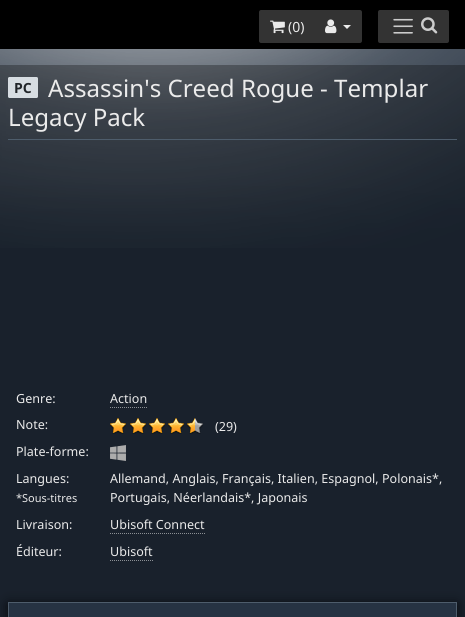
#include <cairo.h>
#include <math.h>
#include <stddef.h>

static cairo_t *ctx;

static void use_color(int r, int g, int b) {
    cairo_set_source_rgb(ctx, r / 255.0, g / 255.0, b / 255.0);
}

static void round_rect(double x, double y, double w, double h, double r) {
    cairo_new_sub_path(ctx);
    cairo_arc(ctx, x + w - r, y + h - r, r, 0, M_PI / 2);
    cairo_arc(ctx, x + r, y + h - r, r, M_PI / 2, M_PI);
    cairo_arc(ctx, x + r, y + r, r, M_PI, 1.5 * M_PI);
    cairo_arc(ctx, x + w - r, y + r, r, 1.5 * M_PI, 2 * M_PI);
    cairo_close_path(ctx);
}

static void shadow(double x, double y, double w, double h, double r, double blur, double alpha) {
    cairo_push_group_with_content(ctx, CAIRO_CONTENT_ALPHA);
    cairo_set_operator(ctx, CAIRO_OPERATOR_SOURCE);
    for (int i = 15; i >= -15 && fmin(w, h) + blur * i / 3 > 0; i -= 2) {
        double e = blur * i / 6;
        cairo_set_source_rgba(ctx, 0, 0, 0, alpha * erfc((i - 1) / 8.5) / 2);
        round_rect(x - e, y - e, w + 2 * e, h + 2 * e, fmax(0, fmin(r + e + blur * .6, fmin(w, h) / 2 + e)));
        cairo_fill(ctx);
    }
    cairo_pattern_t *soft = cairo_pop_group(ctx);
    cairo_mask(ctx, soft);
    cairo_pattern_destroy(soft);
}

static void picture(const char *path, double x, double y, double w, double h) {
    cairo_surface_t *image = cairo_image_surface_create_from_png(path);
    cairo_save(ctx);
    cairo_set_source_surface(ctx, image, x, y);
    cairo_rectangle(ctx, x, y, w, h);
    cairo_fill(ctx);
    cairo_restore(ctx);
    cairo_surface_destroy(image);
}

int main(void) {
    cairo_surface_t *surface = cairo_image_surface_create(CAIRO_FORMAT_RGB24, 465, 617);
    ctx = cairo_create(surface);
    cairo_font_options_t *options = cairo_font_options_create();
    cairo_font_options_set_hint_metrics(options, CAIRO_HINT_METRICS_OFF);
    cairo_font_options_set_hint_style(options, CAIRO_HINT_STYLE_NONE);
    cairo_set_font_options(ctx, options);
    cairo_set_miter_limit(ctx, 4);
    use_color(35, 47, 62);
    cairo_paint(ctx);
    picture("img1.png", 0, 49, 465, 199);
    use_color(0, 0, 0);
    cairo_rectangle(ctx, 0, 0, 465, 49);
    cairo_fill(ctx);
    use_color(51, 51, 51);
    cairo_new_path(ctx);
    cairo_move_to(ctx, 261, 10);
    cairo_line_to(ctx, 315, 10);
    cairo_line_to(ctx, 315, 43);
    cairo_line_to(ctx, 261, 43);
    cairo_curve_to(ctx, 260, 43, 259, 42, 259, 41);
    cairo_line_to(ctx, 259, 12);
    cairo_curve_to(ctx, 259, 11, 260, 10, 261, 10);
    cairo_close_path(ctx);
    cairo_fill(ctx);
    picture("img2.png", 270, 20, 15, 14);
    cairo_select_font_face(ctx, "Noto Sans", CAIRO_FONT_SLANT_NORMAL, CAIRO_FONT_WEIGHT_NORMAL);
    cairo_set_font_size(ctx, 14);
    use_color(235, 235, 235);
    cairo_move_to(ctx, 288, 32);
    cairo_show_text(ctx, "(0)");
    use_color(51, 51, 51);
    cairo_new_path(ctx);
    cairo_move_to(ctx, 314, 10);
    cairo_line_to(ctx, 360, 10);
    cairo_curve_to(ctx, 361, 10, 362, 11, 362, 12);
    cairo_line_to(ctx, 362, 41);
    cairo_curve_to(ctx, 362, 42, 361, 43, 360, 43);
    cairo_line_to(ctx, 314, 43);
    cairo_close_path(ctx);
    cairo_fill(ctx);
    picture("img3.png", 325, 19, 12, 15);
    use_color(235, 235, 235);
    cairo_new_path(ctx);
    cairo_move_to(ctx, 343, 25);
    cairo_line_to(ctx, 351, 25);
    cairo_line_to(ctx, 347, 29);
    cairo_close_path(ctx);
    cairo_fill(ctx);
    use_color(51, 51, 51);
    round_rect(378, 10, 71, 33, 2);
    cairo_fill(ctx);
    picture("img4.png", 393, 18, 20, 16);
    picture("img5.png", 421, 17, 17, 17);
    cairo_set_source_rgba(ctx, 0, 0, 0, 0.3);
    cairo_rectangle(ctx, 0, 65, 465, 552);
    cairo_fill(ctx);
    use_color(78, 93, 108);
    cairo_rectangle(ctx, 8, 139, 449, 1);
    cairo_fill(ctx);
    cairo_set_font_size(ctx, 24.1);
    use_color(235, 235, 235);
    cairo_move_to(ctx, 48, 97);
    cairo_show_text(ctx, "Assassin's Creed Rogue - Templar");
    cairo_move_to(ctx, 8, 126);
    cairo_show_text(ctx, "Legacy Pack");
    use_color(215, 221, 226);
    round_rect(8, 77, 30, 21, 1.5);
    cairo_fill(ctx);
    cairo_select_font_face(ctx, "Noto Sans", CAIRO_FONT_SLANT_NORMAL, CAIRO_FONT_WEIGHT_BOLD);
    cairo_set_font_size(ctx, 14);
    use_color(33, 37, 41);
    cairo_move_to(ctx, 14, 93);
    cairo_show_text(ctx, "PC");
    cairo_select_font_face(ctx, "Noto Sans", CAIRO_FONT_SLANT_NORMAL, CAIRO_FONT_WEIGHT_NORMAL);
    cairo_set_font_size(ctx, 12.55);
    use_color(235, 235, 235);
    cairo_move_to(ctx, 16, 403);
    cairo_show_text(ctx, "Genre:");
    cairo_move_to(ctx, 110, 403);
    cairo_show_text(ctx, "Action");
    cairo_new_path(ctx);
    cairo_move_to(ctx, 110, 407.5);
    cairo_line_to(ctx, 148, 407.5);
    use_color(140, 144, 149);
    cairo_set_line_width(ctx, 1);
    cairo_set_dash(ctx, (double[]){1, 1}, 2, 0);
    cairo_stroke(ctx);
    use_color(235, 235, 235);
    cairo_move_to(ctx, 16, 429);
    cairo_show_text(ctx, "Note:");
    picture("img6.png", 110, 418, 16, 16);
    picture("img6.png", 130, 418, 16, 16);
    picture("img6.png", 149, 418, 16, 16);
    picture("img6.png", 168, 418, 16, 16);
    picture("img7.png", 187, 418, 16, 16);
    cairo_move_to(ctx, 215, 431);
    cairo_show_text(ctx, "(29)");
    cairo_move_to(ctx, 16, 456);
    cairo_show_text(ctx, "Plate-forme:");
    picture("img8.png", 110, 445, 16, 16);
    cairo_move_to(ctx, 16, 483);
    cairo_show_text(ctx, "Langues:");
    cairo_set_font_size(ctx, 11);
    cairo_move_to(ctx, 16, 502);
    cairo_show_text(ctx, "*Sous-titres");
    cairo_set_font_size(ctx, 12.55);
    cairo_move_to(ctx, 110, 483);
    cairo_show_text(ctx, "Allemand, Anglais, Français, Italien, Espagnol, Polonais*,");
    cairo_move_to(ctx, 110, 502);
    cairo_show_text(ctx, "Portugais, Néerlandais*, Japonais");
    cairo_move_to(ctx, 16, 529);
    cairo_show_text(ctx, "Livraison:");
    cairo_move_to(ctx, 110, 529);
    cairo_show_text(ctx, "Ubisoft Connect");
    cairo_new_path(ctx);
    cairo_move_to(ctx, 110, 533.5);
    cairo_line_to(ctx, 205, 533.5);
    use_color(140, 144, 149);
    cairo_stroke(ctx);
    use_color(235, 235, 235);
    cairo_move_to(ctx, 16, 556);
    cairo_show_text(ctx, "Éditeur:");
    cairo_move_to(ctx, 110, 556);
    cairo_show_text(ctx, "Ubisoft");
    cairo_new_path(ctx);
    cairo_move_to(ctx, 110, 560.5);
    cairo_line_to(ctx, 153, 560.5);
    use_color(140, 144, 149);
    cairo_stroke(ctx);
    use_color(0, 0, 0);
    shadow(8, 604, 449, 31, 0, 6, 0.75);
    use_color(38, 51, 67);
    cairo_rectangle(ctx, 8.5, 602.5, 448, 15);
    cairo_fill_preserve(ctx);
    use_color(78, 93, 108);
    cairo_set_dash(ctx, NULL, 0, 0);
    cairo_stroke(ctx);
    cairo_surface_write_to_png(surface, "result.png");
    cairo_font_options_destroy(options);
    cairo_destroy(ctx);
    cairo_surface_destroy(surface);
    return 0;
}
